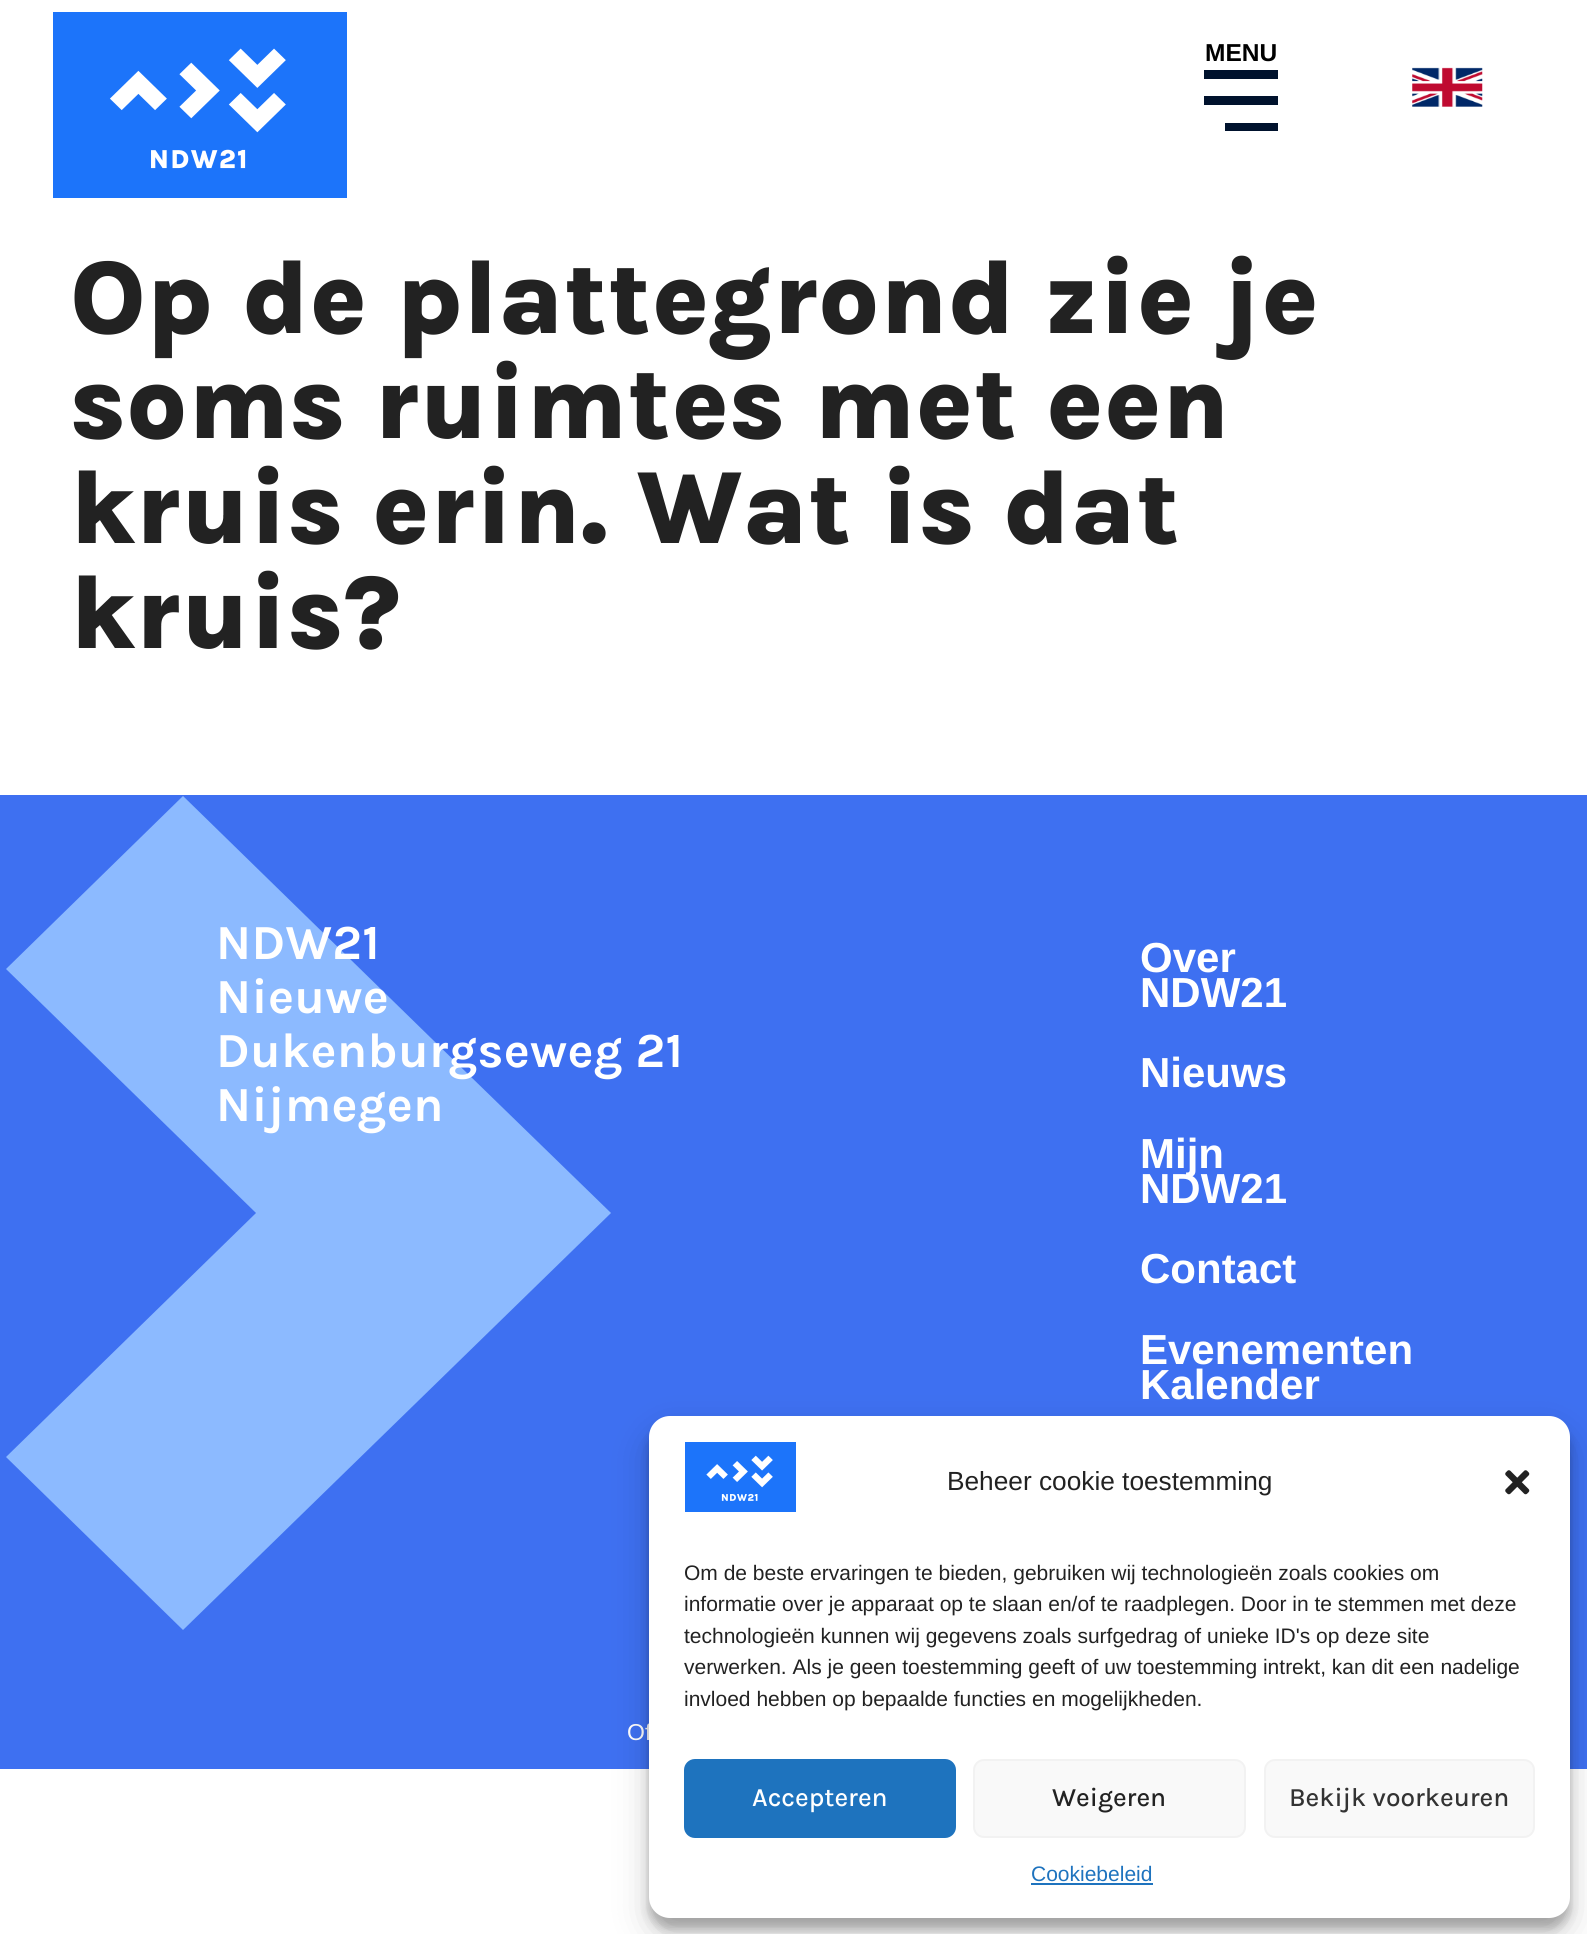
#include <cairo.h>
#include <math.h>
#include <stddef.h>

static cairo_t *ctx;

static void use_color(int r, int g, int b) {
    cairo_set_source_rgb(ctx, r / 255.0, g / 255.0, b / 255.0);
}

static void spaced_text(double x, double y, const char *s, double letter, double word) {
    cairo_move_to(ctx, x, y);
    while (*s) {
        char ch[5] = {0};
        int n = 0;
        do ch[n++] = *s++; while ((*s & 0xC0) == 0x80);
        cairo_show_text(ctx, ch);
        cairo_rel_move_to(ctx, letter + word * (*ch == ' '), 0);
    }
}

static void round_rect(double x, double y, double w, double h, double r) {
    cairo_new_sub_path(ctx);
    cairo_arc(ctx, x + w - r, y + h - r, r, 0, M_PI / 2);
    cairo_arc(ctx, x + r, y + h - r, r, M_PI / 2, M_PI);
    cairo_arc(ctx, x + r, y + r, r, M_PI, 1.5 * M_PI);
    cairo_arc(ctx, x + w - r, y + r, r, 1.5 * M_PI, 2 * M_PI);
    cairo_close_path(ctx);
}

static void shadow(double x, double y, double w, double h, double r, double blur, double alpha) {
    cairo_push_group_with_content(ctx, CAIRO_CONTENT_ALPHA);
    cairo_set_operator(ctx, CAIRO_OPERATOR_SOURCE);
    for (int i = 15; i >= -15 && fmin(w, h) + blur * i / 3 > 0; i -= 2) {
        double e = blur * i / 6;
        cairo_set_source_rgba(ctx, 0, 0, 0, alpha * erfc((i - 1) / 8.5) / 2);
        round_rect(x - e, y - e, w + 2 * e, h + 2 * e, fmax(0, fmin(r + e + blur * .6, fmin(w, h) / 2 + e)));
        cairo_fill(ctx);
    }
    cairo_pattern_t *soft = cairo_pop_group(ctx);
    cairo_mask(ctx, soft);
    cairo_pattern_destroy(soft);
}

static void picture(const char *path, double x, double y, double w, double h) {
    cairo_surface_t *image = cairo_image_surface_create_from_png(path);
    cairo_save(ctx);
    cairo_set_source_surface(ctx, image, x, y);
    cairo_rectangle(ctx, x, y, w, h);
    cairo_fill(ctx);
    cairo_restore(ctx);
    cairo_surface_destroy(image);
}

int main(void) {
    cairo_surface_t *surface = cairo_image_surface_create(CAIRO_FORMAT_RGB24, 1587, 1934);
    ctx = cairo_create(surface);
    cairo_font_options_t *options = cairo_font_options_create();
    cairo_font_options_set_hint_metrics(options, CAIRO_HINT_METRICS_OFF);
    cairo_font_options_set_hint_style(options, CAIRO_HINT_STYLE_NONE);
    cairo_set_font_options(ctx, options);
    cairo_set_miter_limit(ctx, 4);
    use_color(255, 255, 255);
    cairo_paint(ctx);
    picture("img1.png", 53, 12, 294, 186);
    cairo_select_font_face(ctx, "Liberation Sans", CAIRO_FONT_SLANT_NORMAL, CAIRO_FONT_WEIGHT_BOLD);
    cairo_set_font_size(ctx, 24.5);
    use_color(0, 0, 0);
    cairo_move_to(ctx, 1205, 61);
    cairo_show_text(ctx, "MENU");
    use_color(0, 18, 45);
    cairo_rectangle(ctx, 1204, 70, 74, 9);
    cairo_fill(ctx);
    cairo_rectangle(ctx, 1204, 96, 74, 9);
    cairo_fill(ctx);
    cairo_rectangle(ctx, 1225, 123, 53, 8);
    cairo_fill(ctx);
    picture("img2.png", 1412, 67, 71, 40);
    cairo_select_font_face(ctx, "Karla ExtraBold", CAIRO_FONT_SLANT_NORMAL, CAIRO_FONT_WEIGHT_NORMAL);
    cairo_set_font_size(ctx, 105.1);
    use_color(34, 34, 34);
    spaced_text(70, 333, "Op de plattegrond zie je", 0.35, 0);
    spaced_text(70, 438, "soms ruimtes met een", 0.35, 0);
    spaced_text(70, 543, "kruis erin. Wat is dat", 0.35, 0);
    spaced_text(70, 648, "kruis?", 0.35, 0);
    use_color(62, 112, 241);
    cairo_rectangle(ctx, 0, 795, 1587, 974);
    cairo_fill(ctx);
    use_color(140, 186, 255);
    cairo_new_path(ctx);
    cairo_move_to(ctx, 433, 1040);
    cairo_line_to(ctx, 183, 796);
    cairo_line_to(ctx, 6, 969);
    cairo_line_to(ctx, 256, 1213);
    cairo_line_to(ctx, 6, 1457);
    cairo_line_to(ctx, 183, 1630);
    cairo_line_to(ctx, 611, 1213);
    cairo_close_path(ctx);
    cairo_fill(ctx);
    cairo_select_font_face(ctx, "Karla", CAIRO_FONT_SLANT_NORMAL, CAIRO_FONT_WEIGHT_BOLD);
    cairo_set_font_size(ctx, 49);
    use_color(255, 255, 255);
    spaced_text(216, 959, "NDW21", 0.35, 0);
    spaced_text(216, 1013, "Nieuwe", 0.35, 0);
    spaced_text(216, 1067, "Dukenburgseweg 21", 0.35, 0);
    spaced_text(216, 1121, "Nijmegen", 0.35, 0);
    cairo_select_font_face(ctx, "Liberation Sans", CAIRO_FONT_SLANT_NORMAL, CAIRO_FONT_WEIGHT_BOLD);
    cairo_set_font_size(ctx, 42);
    cairo_move_to(ctx, 1140, 972);
    cairo_show_text(ctx, "Over");
    cairo_move_to(ctx, 1140, 1007);
    cairo_show_text(ctx, "NDW21");
    cairo_move_to(ctx, 1140, 1087);
    cairo_show_text(ctx, "Nieuws");
    cairo_move_to(ctx, 1140, 1168);
    cairo_show_text(ctx, "Mijn");
    cairo_move_to(ctx, 1140, 1203);
    cairo_show_text(ctx, "NDW21");
    cairo_move_to(ctx, 1140, 1283);
    cairo_show_text(ctx, "Contact");
    cairo_move_to(ctx, 1140, 1364);
    cairo_show_text(ctx, "Evenementen");
    cairo_move_to(ctx, 1140, 1399);
    cairo_show_text(ctx, "Kalender");
    cairo_select_font_face(ctx, "Liberation Sans", CAIRO_FONT_SLANT_NORMAL, CAIRO_FONT_WEIGHT_NORMAL);
    cairo_set_font_size(ctx, 23);
    cairo_move_to(ctx, 627, 1740);
    cairo_show_text(ctx, "Of");
    use_color(0, 0, 0);
    shadow(649, 1426, 921, 503, 21, 5, 0.23);
    shadow(649, 1433, 921, 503, 21, 17.5, 0.19);
    use_color(255, 255, 255);
    round_rect(649, 1416, 921, 502, 21);
    cairo_fill(ctx);
    picture("img3.png", 685, 1442, 111, 70);
    cairo_set_font_size(ctx, 26.25);
    use_color(34, 34, 34);
    cairo_move_to(ctx, 947, 1490);
    cairo_show_text(ctx, "Beheer cookie toestemming");
    picture("img4.png", 1505, 1470, 25, 25);
    cairo_set_font_size(ctx, 21);
    cairo_move_to(ctx, 684, 1580);
    cairo_show_text(ctx, "Om de beste ervaringen te bieden, gebruiken wij technologieën zoals cookies om");
    cairo_move_to(ctx, 684, 1611);
    cairo_show_text(ctx, "informatie over je apparaat op te slaan en/of te raadplegen. Door in te stemmen met deze");
    cairo_move_to(ctx, 684, 1643);
    cairo_show_text(ctx, "technologieën kunnen wij gegevens zoals surfgedrag of unieke ID's op deze site");
    cairo_move_to(ctx, 684, 1674);
    cairo_show_text(ctx, "verwerken. Als je geen toestemming geeft of uw toestemming intrekt, kan dit een nadelige");
    cairo_move_to(ctx, 684, 1706);
    cairo_show_text(ctx, "invloed hebben op bepaalde functies en mogelijkheden.");
    use_color(30, 115, 190);
    round_rect(685, 1760, 270, 77, 10);
    cairo_fill_preserve(ctx);
    cairo_stroke(ctx);
    cairo_select_font_face(ctx, "Karla Medium", CAIRO_FONT_SLANT_NORMAL, CAIRO_FONT_WEIGHT_NORMAL);
    cairo_set_font_size(ctx, 26.25);
    use_color(255, 255, 255);
    cairo_move_to(ctx, 752, 1806);
    cairo_show_text(ctx, "Accepteren");
    use_color(249, 249, 249);
    round_rect(974, 1760, 271, 77, 10);
    cairo_fill_preserve(ctx);
    use_color(242, 242, 242);
    cairo_stroke(ctx);
    use_color(34, 34, 34);
    cairo_move_to(ctx, 1052, 1806);
    cairo_show_text(ctx, "Weigeren");
    use_color(249, 249, 249);
    round_rect(1265, 1760, 269, 77, 10);
    cairo_fill_preserve(ctx);
    use_color(242, 242, 242);
    cairo_stroke(ctx);
    use_color(51, 51, 51);
    cairo_move_to(ctx, 1289, 1806);
    cairo_show_text(ctx, "Bekijk voorkeuren");
    cairo_select_font_face(ctx, "Liberation Sans", CAIRO_FONT_SLANT_NORMAL, CAIRO_FONT_WEIGHT_NORMAL);
    cairo_set_font_size(ctx, 21);
    use_color(30, 115, 190);
    cairo_move_to(ctx, 1031, 1881);
    cairo_show_text(ctx, "Cookiebeleid");
    cairo_rectangle(ctx, 1031, 1883, 122, 2);
    cairo_fill(ctx);
    cairo_surface_write_to_png(surface, "result.png");
    cairo_font_options_destroy(options);
    cairo_destroy(ctx);
    cairo_surface_destroy(surface);
    return 0;
}
